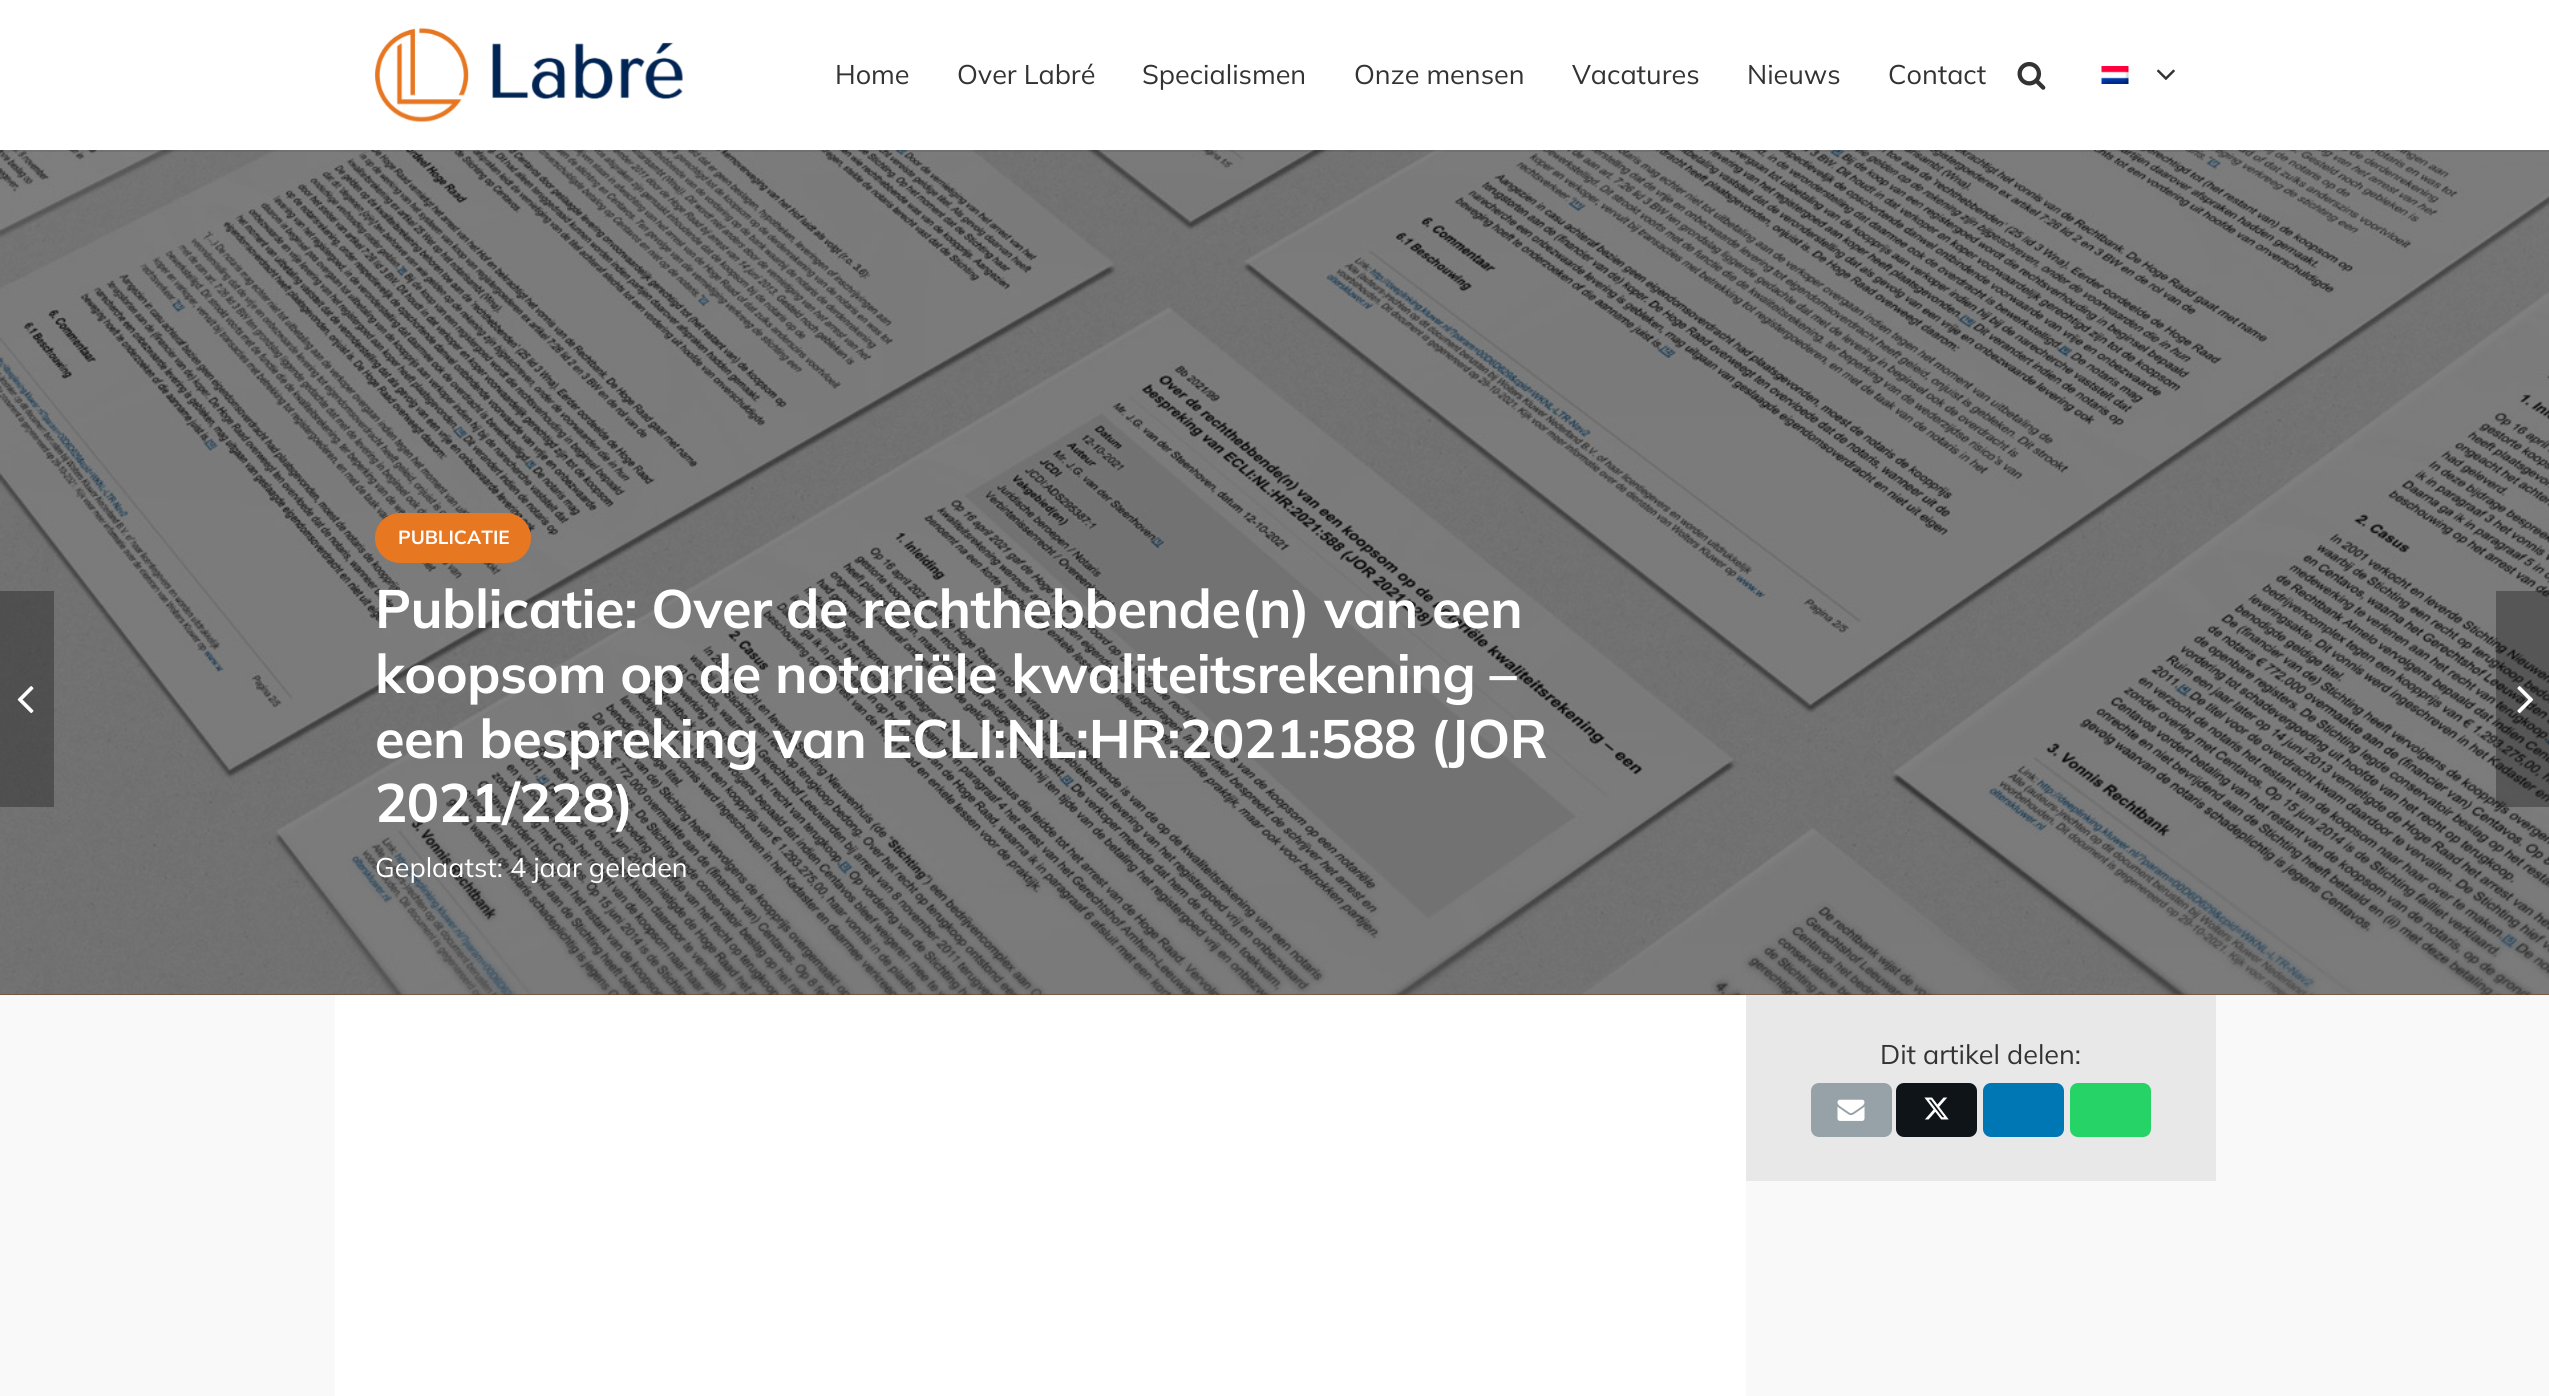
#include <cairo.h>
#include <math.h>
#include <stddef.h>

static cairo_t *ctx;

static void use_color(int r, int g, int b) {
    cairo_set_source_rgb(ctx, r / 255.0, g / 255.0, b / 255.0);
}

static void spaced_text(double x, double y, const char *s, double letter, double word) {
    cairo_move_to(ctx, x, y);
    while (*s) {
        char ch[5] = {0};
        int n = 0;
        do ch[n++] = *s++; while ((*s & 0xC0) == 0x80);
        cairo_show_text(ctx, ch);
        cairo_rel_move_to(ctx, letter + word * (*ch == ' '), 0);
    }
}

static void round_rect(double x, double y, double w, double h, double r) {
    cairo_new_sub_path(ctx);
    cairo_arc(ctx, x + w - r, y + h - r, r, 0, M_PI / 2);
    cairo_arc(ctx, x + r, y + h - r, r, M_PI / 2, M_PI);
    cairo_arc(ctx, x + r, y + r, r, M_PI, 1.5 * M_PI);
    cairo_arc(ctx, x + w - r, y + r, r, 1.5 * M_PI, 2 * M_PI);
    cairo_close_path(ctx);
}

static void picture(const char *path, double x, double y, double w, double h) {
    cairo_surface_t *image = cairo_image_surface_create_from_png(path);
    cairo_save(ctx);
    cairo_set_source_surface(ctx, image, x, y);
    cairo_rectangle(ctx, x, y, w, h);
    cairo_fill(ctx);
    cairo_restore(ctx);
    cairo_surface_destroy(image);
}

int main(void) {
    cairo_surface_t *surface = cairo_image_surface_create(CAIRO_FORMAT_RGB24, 2549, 1396);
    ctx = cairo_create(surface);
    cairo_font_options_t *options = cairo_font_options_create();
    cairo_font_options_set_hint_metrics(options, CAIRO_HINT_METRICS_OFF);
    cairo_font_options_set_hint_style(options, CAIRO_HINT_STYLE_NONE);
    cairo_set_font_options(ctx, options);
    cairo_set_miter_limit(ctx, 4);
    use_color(116, 60, 17);
    cairo_paint(ctx);
    picture("img5.png", 0, 150, 2549, 845);
    cairo_set_source_rgba(ctx, 0, 0, 0, 0.08);
    cairo_rectangle(ctx, 0, 150, 2549, 2);
    cairo_fill(ctx);
    use_color(255, 255, 255);
    cairo_rectangle(ctx, 0, 0, 2549, 150);
    cairo_fill(ctx);
    picture("img1.png", 375, 28, 308, 94);
    cairo_select_font_face(ctx, "Mulish", CAIRO_FONT_SLANT_NORMAL, CAIRO_FONT_WEIGHT_NORMAL);
    cairo_set_font_size(ctx, 27);
    use_color(51, 51, 51);
    cairo_move_to(ctx, 835, 84);
    cairo_show_text(ctx, "Home");
    cairo_move_to(ctx, 957, 84);
    cairo_show_text(ctx, "Over Labré");
    cairo_move_to(ctx, 1142, 84);
    cairo_show_text(ctx, "Specialismen");
    cairo_move_to(ctx, 1354, 84);
    cairo_show_text(ctx, "Onze mensen");
    cairo_move_to(ctx, 1572, 84);
    cairo_show_text(ctx, "Vacatures");
    cairo_move_to(ctx, 1747, 84);
    cairo_show_text(ctx, "Nieuws");
    cairo_move_to(ctx, 1888, 84);
    cairo_show_text(ctx, "Contact");
    picture("img2.png", 2017, 61, 29, 29);
    picture("img3.png", 2101, 66, 28, 18);
    picture("img4.png", 2157, 69, 18, 11);
    use_color(232, 119, 34);
    round_rect(375, 513, 156, 50, 25);
    cairo_fill(ctx);
    cairo_select_font_face(ctx, "Mulish", CAIRO_FONT_SLANT_NORMAL, CAIRO_FONT_WEIGHT_BOLD);
    cairo_set_font_size(ctx, 19);
    use_color(255, 255, 255);
    cairo_move_to(ctx, 398, 544);
    cairo_show_text(ctx, "PUBLICATIE");
    cairo_set_font_size(ctx, 54);
    spaced_text(375, 628, "Publicatie: Over de rechthebbende(n) van een", -0.55, 0);
    spaced_text(375, 693, "koopsom op de notariële kwaliteitsrekening –", -0.55, 0);
    spaced_text(375, 758, "een bespreking van ECLI:NL:HR:2021:588 (JOR", -0.55, 0);
    spaced_text(375, 822, "2021/228)", -0.55, 0);
    cairo_select_font_face(ctx, "Mulish", CAIRO_FONT_SLANT_NORMAL, CAIRO_FONT_WEIGHT_NORMAL);
    cairo_set_font_size(ctx, 27);
    cairo_move_to(ctx, 375, 877);
    cairo_show_text(ctx, "Geplaatst: 4 jaar geleden");
    cairo_set_source_rgba(ctx, 0, 0, 0, 0.3);
    cairo_rectangle(ctx, 0, 591, 54, 216);
    cairo_fill(ctx);
    picture("img6.png", 17, 686, 17, 28);
    cairo_rectangle(ctx, 2496, 591, 53, 216);
    cairo_fill(ctx);
    picture("img7.png", 2517, 686, 17, 27);
    use_color(249, 249, 249);
    cairo_rectangle(ctx, 0, 995, 2549, 401);
    cairo_fill(ctx);
    use_color(255, 255, 255);
    cairo_rectangle(ctx, 335, 995, 1411, 401);
    cairo_fill(ctx);
    use_color(232, 232, 232);
    cairo_rectangle(ctx, 1746, 995, 470, 186);
    cairo_fill(ctx);
    use_color(51, 51, 51);
    cairo_move_to(ctx, 1880, 1064);
    cairo_show_text(ctx, "Dit artikel delen:");
    use_color(150, 162, 168);
    round_rect(1811, 1083, 81, 54, 8);
    cairo_fill(ctx);
    picture("img8.png", 1837, 1099, 28, 22);
    use_color(15, 20, 25);
    round_rect(1896, 1083, 81, 54, 8);
    cairo_fill(ctx);
    picture("img9.png", 1924, 1097, 25, 23);
    use_color(0, 119, 181);
    round_rect(1983, 1083, 81, 54, 8);
    cairo_fill(ctx);
    use_color(37, 211, 102);
    round_rect(2070, 1083, 81, 54, 8);
    cairo_fill(ctx);
    cairo_surface_write_to_png(surface, "result.png");
    cairo_font_options_destroy(options);
    cairo_destroy(ctx);
    cairo_surface_destroy(surface);
    return 0;
}
